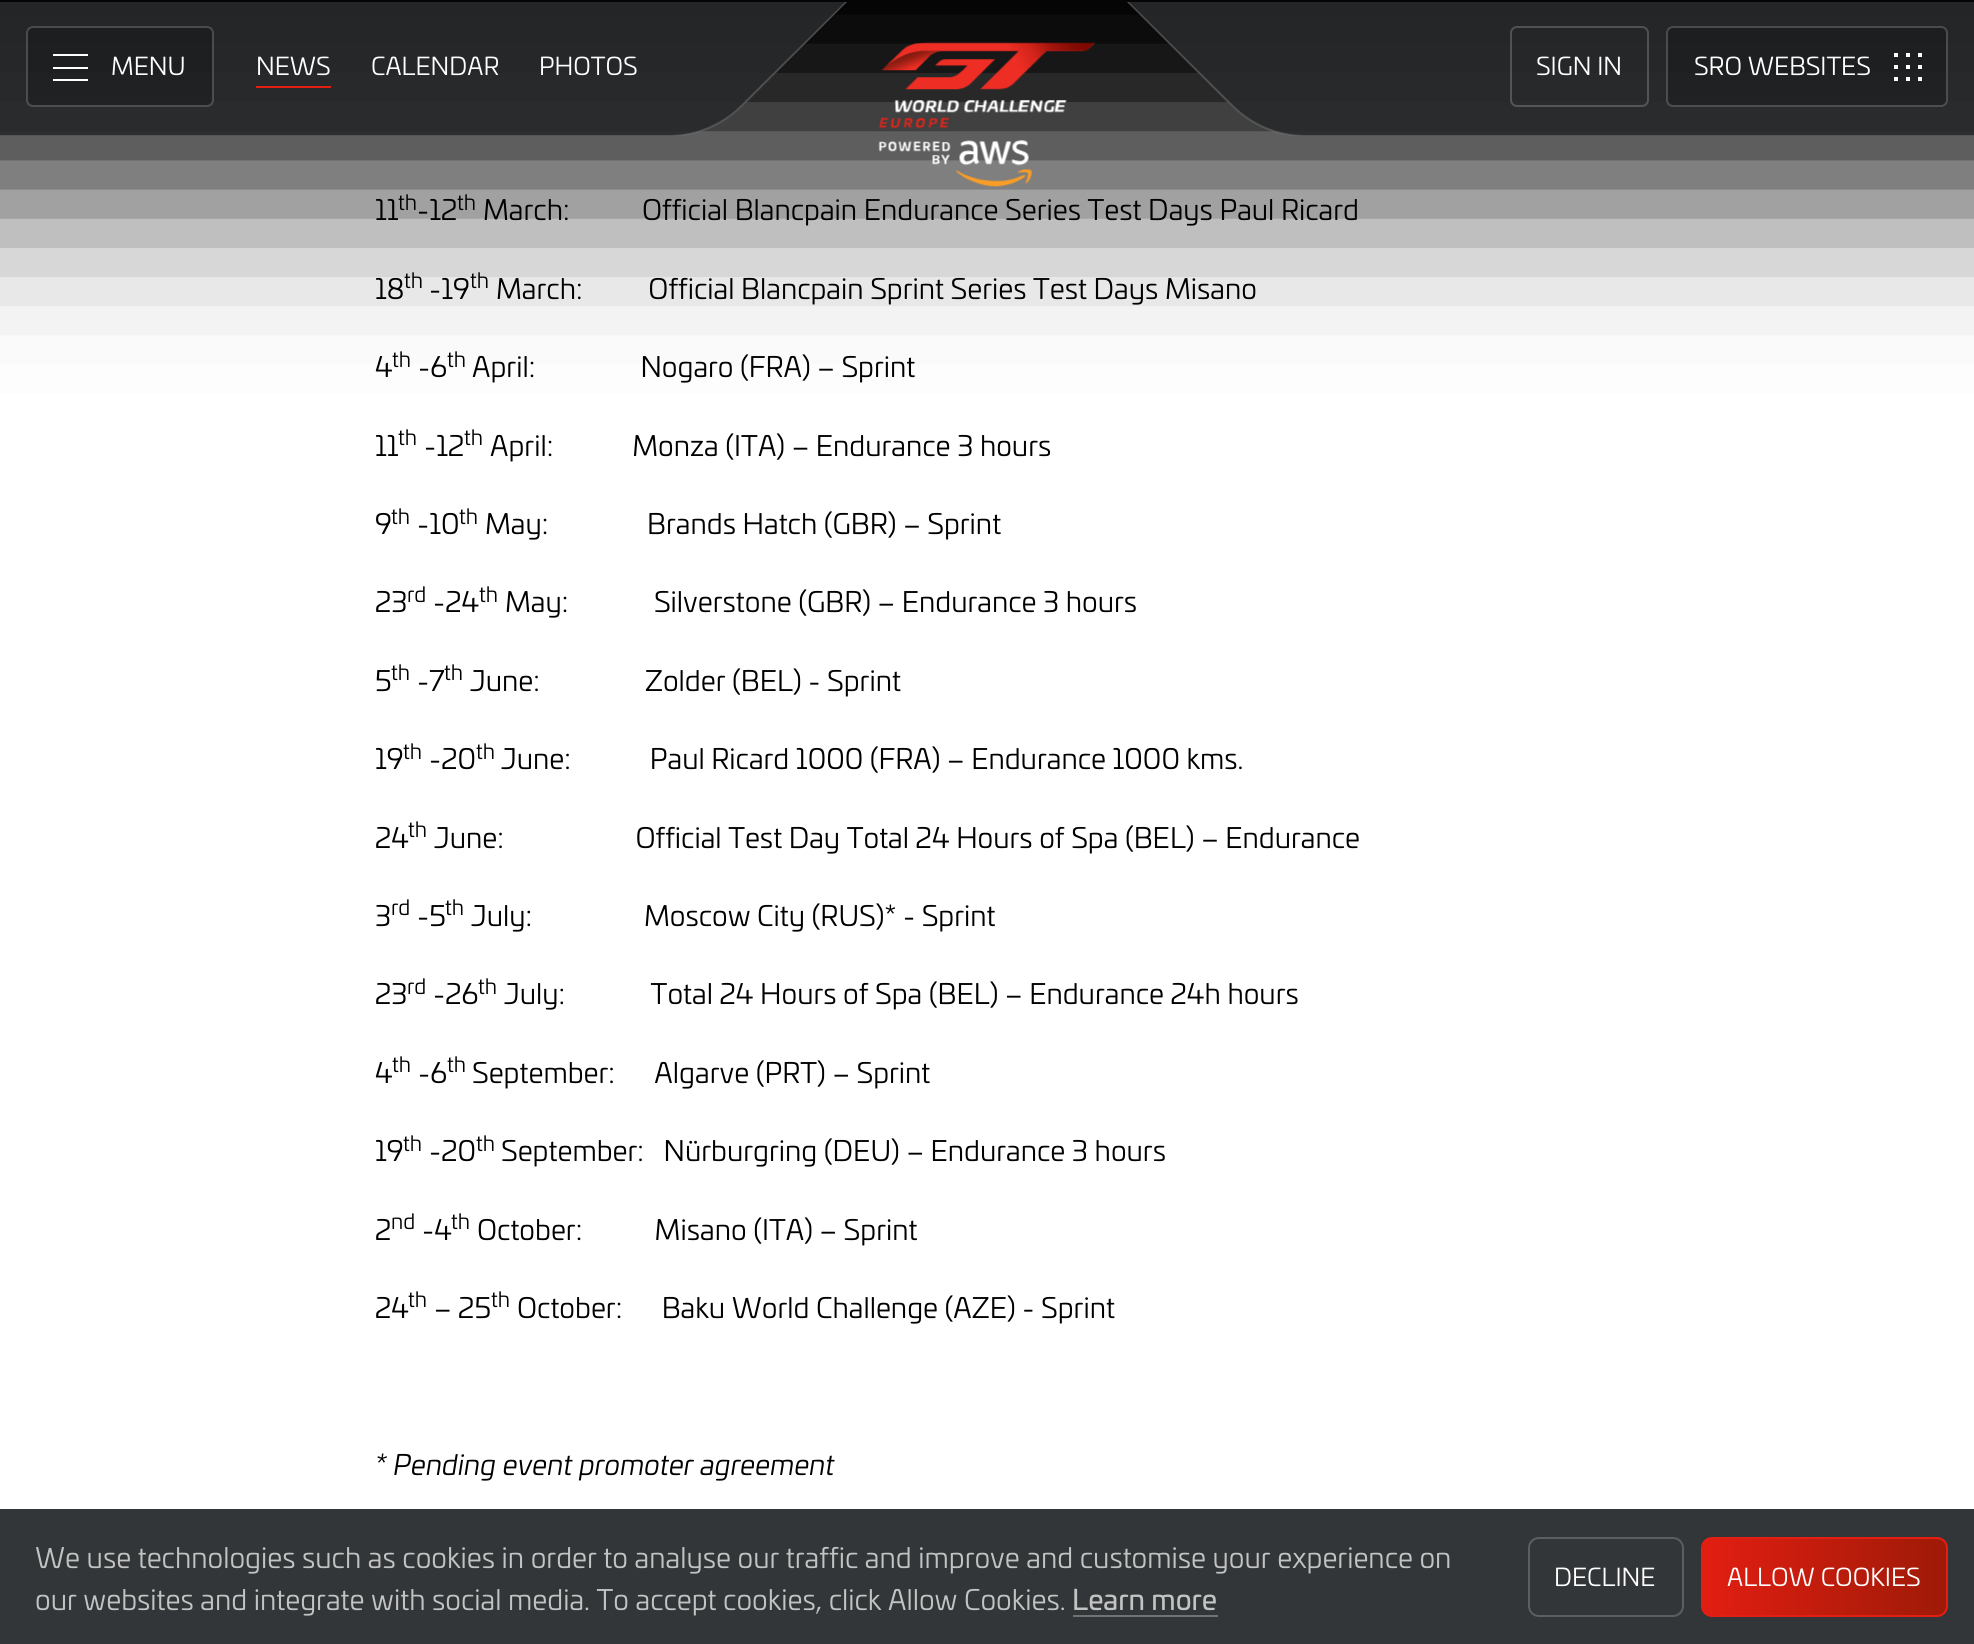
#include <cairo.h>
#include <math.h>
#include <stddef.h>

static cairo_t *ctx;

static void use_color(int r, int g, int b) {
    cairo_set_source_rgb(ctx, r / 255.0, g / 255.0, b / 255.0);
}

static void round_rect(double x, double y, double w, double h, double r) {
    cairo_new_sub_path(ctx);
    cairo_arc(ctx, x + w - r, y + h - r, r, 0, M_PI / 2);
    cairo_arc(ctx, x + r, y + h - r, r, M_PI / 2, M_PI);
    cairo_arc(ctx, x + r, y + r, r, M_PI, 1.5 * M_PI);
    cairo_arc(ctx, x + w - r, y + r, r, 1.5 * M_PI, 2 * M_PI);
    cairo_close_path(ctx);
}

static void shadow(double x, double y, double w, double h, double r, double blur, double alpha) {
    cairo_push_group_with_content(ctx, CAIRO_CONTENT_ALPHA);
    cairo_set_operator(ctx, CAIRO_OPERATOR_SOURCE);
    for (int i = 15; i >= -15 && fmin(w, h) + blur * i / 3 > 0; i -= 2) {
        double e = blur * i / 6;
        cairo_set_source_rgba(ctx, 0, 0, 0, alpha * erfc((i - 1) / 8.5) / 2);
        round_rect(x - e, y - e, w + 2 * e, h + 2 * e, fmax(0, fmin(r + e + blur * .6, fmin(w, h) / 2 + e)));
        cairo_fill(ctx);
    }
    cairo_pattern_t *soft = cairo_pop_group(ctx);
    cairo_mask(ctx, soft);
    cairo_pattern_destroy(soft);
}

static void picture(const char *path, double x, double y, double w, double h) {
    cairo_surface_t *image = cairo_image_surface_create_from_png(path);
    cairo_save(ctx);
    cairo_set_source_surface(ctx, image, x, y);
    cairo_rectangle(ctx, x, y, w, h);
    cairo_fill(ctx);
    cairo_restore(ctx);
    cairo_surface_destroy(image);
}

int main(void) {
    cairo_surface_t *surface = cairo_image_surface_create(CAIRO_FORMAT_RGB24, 1974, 1644);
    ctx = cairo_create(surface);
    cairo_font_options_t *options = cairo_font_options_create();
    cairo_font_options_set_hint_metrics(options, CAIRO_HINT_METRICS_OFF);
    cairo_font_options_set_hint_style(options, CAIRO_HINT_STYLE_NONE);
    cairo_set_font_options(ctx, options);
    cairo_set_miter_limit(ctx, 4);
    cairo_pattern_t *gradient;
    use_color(255, 255, 255);
    cairo_paint(ctx);
    use_color(0, 0, 0);
    shadow(-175, -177, 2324, 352, 0, 87.5, 1);
    cairo_set_source_rgba(ctx, 0.153, 0.161, 0.165, 0.9);
    cairo_new_path(ctx);
    cairo_move_to(ctx, -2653, 2);
    cairo_line_to(ctx, -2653, 136);
    cairo_line_to(ctx, 669, 136);
    cairo_curve_to(ctx, 697, 136, 723, 126, 743, 106);
    cairo_line_to(ctx, 847, 2);
    cairo_close_path(ctx);
    cairo_fill(ctx);
    cairo_set_source_rgba(ctx, 1, 1, 1, 0.18);
    cairo_new_path(ctx);
    cairo_move_to(ctx, 845, 2);
    cairo_line_to(ctx, 741, 105);
    cairo_curve_to(ctx, 722, 124, 696, 135, 669, 135);
    cairo_line_to(ctx, -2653, 135);
    cairo_line_to(ctx, -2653, 136);
    cairo_line_to(ctx, 669, 136);
    cairo_curve_to(ctx, 697, 137, 723, 126, 743, 106);
    cairo_line_to(ctx, 847, 2);
    cairo_close_path(ctx);
    cairo_fill(ctx);
    cairo_set_source_rgba(ctx, 0, 0, 0, 0.2);
    round_rect(26, 26, 188, 81, 7);
    cairo_fill(ctx);
    round_rect(27, 27, 186, 79, 6);
    cairo_set_source_rgba(ctx, 1, 1, 1, 0.2);
    cairo_stroke(ctx);
    use_color(255, 255, 255);
    cairo_rectangle(ctx, 53, 54, 35, 2);
    cairo_fill(ctx);
    cairo_rectangle(ctx, 53, 67, 35, 2);
    cairo_fill(ctx);
    cairo_rectangle(ctx, 53, 79, 35, 2);
    cairo_fill(ctx);
    cairo_select_font_face(ctx, "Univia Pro", CAIRO_FONT_SLANT_NORMAL, CAIRO_FONT_WEIGHT_NORMAL);
    cairo_set_font_size(ctx, 24.5);
    cairo_move_to(ctx, 111, 75);
    cairo_show_text(ctx, "MENU");
    cairo_move_to(ctx, 256, 75);
    cairo_show_text(ctx, "NEWS");
    use_color(227, 30, 18);
    cairo_rectangle(ctx, 256, 86, 75, 2);
    cairo_fill(ctx);
    use_color(255, 255, 255);
    cairo_move_to(ctx, 371, 75);
    cairo_show_text(ctx, "CALENDAR");
    cairo_move_to(ctx, 539, 75);
    cairo_show_text(ctx, "PHOTOS");
    picture("img1.png", 878, 42, 217, 145);
    cairo_set_source_rgba(ctx, 0.153, 0.161, 0.165, 0.9);
    cairo_new_path(ctx);
    cairo_move_to(ctx, 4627, 2);
    cairo_line_to(ctx, 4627, 136);
    cairo_line_to(ctx, 1305, 136);
    cairo_curve_to(ctx, 1277, 136, 1251, 126, 1231, 106);
    cairo_line_to(ctx, 1127, 2);
    cairo_close_path(ctx);
    cairo_fill(ctx);
    cairo_set_source_rgba(ctx, 1, 1, 1, 0.18);
    cairo_new_path(ctx);
    cairo_move_to(ctx, 1129, 2);
    cairo_line_to(ctx, 1233, 105);
    cairo_curve_to(ctx, 1252, 124, 1278, 135, 1305, 135);
    cairo_line_to(ctx, 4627, 135);
    cairo_line_to(ctx, 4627, 136);
    cairo_line_to(ctx, 1305, 136);
    cairo_curve_to(ctx, 1277, 137, 1251, 126, 1231, 106);
    cairo_line_to(ctx, 1127, 2);
    cairo_close_path(ctx);
    cairo_fill(ctx);
    round_rect(1511, 27, 137, 79, 6);
    cairo_set_source_rgba(ctx, 1, 1, 1, 0.2);
    cairo_stroke(ctx);
    use_color(255, 255, 255);
    cairo_move_to(ctx, 1536, 75);
    cairo_show_text(ctx, "SIGN IN");
    cairo_set_source_rgba(ctx, 0, 0, 0, 0.2);
    round_rect(1666, 26, 282, 81, 7);
    cairo_fill(ctx);
    round_rect(1667, 27, 280, 79, 6);
    cairo_set_source_rgba(ctx, 1, 1, 1, 0.2);
    cairo_stroke(ctx);
    use_color(255, 255, 255);
    cairo_move_to(ctx, 1694, 75);
    cairo_show_text(ctx, "SRO WEBSITES");
    cairo_rectangle(ctx, 1894, 53, 4, 4);
    cairo_fill(ctx);
    cairo_rectangle(ctx, 1906, 53, 4, 4);
    cairo_fill(ctx);
    cairo_rectangle(ctx, 1918, 53, 4, 4);
    cairo_fill(ctx);
    cairo_rectangle(ctx, 1894, 65, 4, 4);
    cairo_fill(ctx);
    cairo_rectangle(ctx, 1906, 65, 4, 4);
    cairo_fill(ctx);
    cairo_rectangle(ctx, 1918, 65, 4, 4);
    cairo_fill(ctx);
    cairo_rectangle(ctx, 1894, 77, 4, 4);
    cairo_fill(ctx);
    cairo_rectangle(ctx, 1906, 77, 4, 4);
    cairo_fill(ctx);
    cairo_rectangle(ctx, 1918, 77, 4, 4);
    cairo_fill(ctx);
    cairo_set_font_size(ctx, 28);
    use_color(0, 0, 0);
    cairo_move_to(ctx, 375, 220);
    cairo_show_text(ctx, "11");
    cairo_set_font_size(ctx, 21);
    cairo_move_to(ctx, 398, 210);
    cairo_show_text(ctx, "th");
    cairo_set_font_size(ctx, 28);
    cairo_move_to(ctx, 417, 220);
    cairo_show_text(ctx, "-12");
    cairo_set_font_size(ctx, 21);
    cairo_move_to(ctx, 457, 210);
    cairo_show_text(ctx, "th");
    cairo_set_font_size(ctx, 28);
    cairo_move_to(ctx, 483, 220);
    cairo_show_text(ctx, "March:           Official Blancpain Endurance Series Test Days Paul Ricard");
    cairo_move_to(ctx, 375, 299);
    cairo_show_text(ctx, "18");
    cairo_set_font_size(ctx, 21);
    cairo_move_to(ctx, 404, 288);
    cairo_show_text(ctx, "th");
    cairo_set_font_size(ctx, 28);
    cairo_move_to(ctx, 429, 299);
    cairo_show_text(ctx, "-19");
    cairo_set_font_size(ctx, 21);
    cairo_move_to(ctx, 470, 288);
    cairo_show_text(ctx, "th");
    cairo_set_font_size(ctx, 28);
    cairo_move_to(ctx, 496, 299);
    cairo_show_text(ctx, "March:          Official Blancpain Sprint Series Test Days Misano");
    cairo_move_to(ctx, 375, 377);
    cairo_show_text(ctx, "4");
    cairo_set_font_size(ctx, 21);
    cairo_move_to(ctx, 392, 367);
    cairo_show_text(ctx, "th");
    cairo_set_font_size(ctx, 28);
    cairo_move_to(ctx, 418, 377);
    cairo_show_text(ctx, "-6");
    cairo_set_font_size(ctx, 21);
    cairo_move_to(ctx, 447, 367);
    cairo_show_text(ctx, "th");
    cairo_set_font_size(ctx, 28);
    cairo_move_to(ctx, 472, 377);
    cairo_show_text(ctx, "April:                Nogaro (FRA) – Sprint");
    cairo_move_to(ctx, 375, 456);
    cairo_show_text(ctx, "11");
    cairo_set_font_size(ctx, 21);
    cairo_move_to(ctx, 398, 445);
    cairo_show_text(ctx, "th");
    cairo_set_font_size(ctx, 28);
    cairo_move_to(ctx, 424, 456);
    cairo_show_text(ctx, "-12");
    cairo_set_font_size(ctx, 21);
    cairo_move_to(ctx, 464, 445);
    cairo_show_text(ctx, "th");
    cairo_set_font_size(ctx, 28);
    cairo_move_to(ctx, 490, 456);
    cairo_show_text(ctx, "April:            Monza (ITA) – Endurance 3 hours");
    cairo_move_to(ctx, 375, 534);
    cairo_show_text(ctx, "9");
    cairo_set_font_size(ctx, 21);
    cairo_move_to(ctx, 391, 524);
    cairo_show_text(ctx, "th");
    cairo_set_font_size(ctx, 28);
    cairo_move_to(ctx, 417, 534);
    cairo_show_text(ctx, "-10");
    cairo_set_font_size(ctx, 21);
    cairo_move_to(ctx, 459, 524);
    cairo_show_text(ctx, "th");
    cairo_set_font_size(ctx, 28);
    cairo_move_to(ctx, 485, 534);
    cairo_show_text(ctx, "May:               Brands Hatch (GBR) – Sprint");
    cairo_move_to(ctx, 375, 612);
    cairo_show_text(ctx, "23");
    cairo_set_font_size(ctx, 21);
    cairo_move_to(ctx, 407, 602);
    cairo_show_text(ctx, "rd");
    cairo_set_font_size(ctx, 28);
    cairo_move_to(ctx, 433, 612);
    cairo_show_text(ctx, "-24");
    cairo_set_font_size(ctx, 21);
    cairo_move_to(ctx, 479, 602);
    cairo_show_text(ctx, "th");
    cairo_set_font_size(ctx, 28);
    cairo_move_to(ctx, 505, 612);
    cairo_show_text(ctx, "May:             Silverstone (GBR) – Endurance 3 hours");
    cairo_move_to(ctx, 375, 691);
    cairo_show_text(ctx, "5");
    cairo_set_font_size(ctx, 21);
    cairo_move_to(ctx, 391, 680);
    cairo_show_text(ctx, "th");
    cairo_set_font_size(ctx, 28);
    cairo_move_to(ctx, 417, 691);
    cairo_show_text(ctx, "-7");
    cairo_set_font_size(ctx, 21);
    cairo_move_to(ctx, 444, 680);
    cairo_show_text(ctx, "th");
    cairo_set_font_size(ctx, 28);
    cairo_move_to(ctx, 470, 691);
    cairo_show_text(ctx, "June:                Zolder (BEL) - Sprint");
    cairo_move_to(ctx, 375, 769);
    cairo_show_text(ctx, "19");
    cairo_set_font_size(ctx, 21);
    cairo_move_to(ctx, 403, 759);
    cairo_show_text(ctx, "th");
    cairo_set_font_size(ctx, 28);
    cairo_move_to(ctx, 429, 769);
    cairo_show_text(ctx, "-20");
    cairo_set_font_size(ctx, 21);
    cairo_move_to(ctx, 476, 759);
    cairo_show_text(ctx, "th");
    cairo_set_font_size(ctx, 28);
    cairo_move_to(ctx, 501, 769);
    cairo_show_text(ctx, "June:            Paul Ricard 1000 (FRA) – Endurance 1000 kms.");
    cairo_move_to(ctx, 375, 848);
    cairo_show_text(ctx, "24");
    cairo_set_font_size(ctx, 21);
    cairo_move_to(ctx, 408, 837);
    cairo_show_text(ctx, "th");
    cairo_set_font_size(ctx, 28);
    cairo_move_to(ctx, 434, 848);
    cairo_show_text(ctx, "June:                    Official Test Day Total 24 Hours of Spa (BEL) – Endurance");
    cairo_move_to(ctx, 375, 926);
    cairo_show_text(ctx, "3");
    cairo_set_font_size(ctx, 21);
    cairo_move_to(ctx, 391, 915);
    cairo_show_text(ctx, "rd");
    cairo_set_font_size(ctx, 28);
    cairo_move_to(ctx, 417, 926);
    cairo_show_text(ctx, "-5");
    cairo_set_font_size(ctx, 21);
    cairo_move_to(ctx, 445, 915);
    cairo_show_text(ctx, "th");
    cairo_set_font_size(ctx, 28);
    cairo_move_to(ctx, 471, 926);
    cairo_show_text(ctx, "July:                 Moscow City (RUS)* - Sprint");
    cairo_move_to(ctx, 375, 1004);
    cairo_show_text(ctx, "23");
    cairo_set_font_size(ctx, 21);
    cairo_move_to(ctx, 407, 994);
    cairo_show_text(ctx, "rd");
    cairo_set_font_size(ctx, 28);
    cairo_move_to(ctx, 433, 1004);
    cairo_show_text(ctx, "-26");
    cairo_set_font_size(ctx, 21);
    cairo_move_to(ctx, 478, 994);
    cairo_show_text(ctx, "th");
    cairo_set_font_size(ctx, 28);
    cairo_move_to(ctx, 504, 1004);
    cairo_show_text(ctx, "July:             Total 24 Hours of Spa (BEL) – Endurance 24h hours");
    cairo_move_to(ctx, 375, 1083);
    cairo_show_text(ctx, "4");
    cairo_set_font_size(ctx, 21);
    cairo_move_to(ctx, 392, 1072);
    cairo_show_text(ctx, "th");
    cairo_set_font_size(ctx, 28);
    cairo_move_to(ctx, 418, 1083);
    cairo_show_text(ctx, "-6");
    cairo_set_font_size(ctx, 21);
    cairo_move_to(ctx, 447, 1072);
    cairo_show_text(ctx, "th");
    cairo_set_font_size(ctx, 28);
    cairo_move_to(ctx, 472, 1083);
    cairo_show_text(ctx, "September:      Algarve (PRT) – Sprint");
    cairo_move_to(ctx, 375, 1161);
    cairo_show_text(ctx, "19");
    cairo_set_font_size(ctx, 21);
    cairo_move_to(ctx, 403, 1151);
    cairo_show_text(ctx, "th");
    cairo_set_font_size(ctx, 28);
    cairo_move_to(ctx, 429, 1161);
    cairo_show_text(ctx, "-20");
    cairo_set_font_size(ctx, 21);
    cairo_move_to(ctx, 476, 1151);
    cairo_show_text(ctx, "th");
    cairo_set_font_size(ctx, 28);
    cairo_move_to(ctx, 501, 1161);
    cairo_show_text(ctx, "September:   Nürburgring (DEU) – Endurance 3 hours");
    cairo_move_to(ctx, 375, 1240);
    cairo_show_text(ctx, "2");
    cairo_set_font_size(ctx, 21);
    cairo_move_to(ctx, 391, 1229);
    cairo_show_text(ctx, "nd");
    cairo_set_font_size(ctx, 28);
    cairo_move_to(ctx, 422, 1240);
    cairo_show_text(ctx, "-4");
    cairo_set_font_size(ctx, 21);
    cairo_move_to(ctx, 451, 1229);
    cairo_show_text(ctx, "th");
    cairo_set_font_size(ctx, 28);
    cairo_move_to(ctx, 477, 1240);
    cairo_show_text(ctx, "October:           Misano (ITA) – Sprint");
    cairo_move_to(ctx, 375, 1318);
    cairo_show_text(ctx, "24");
    cairo_set_font_size(ctx, 21);
    cairo_move_to(ctx, 408, 1307);
    cairo_show_text(ctx, "th");
    cairo_set_font_size(ctx, 28);
    cairo_move_to(ctx, 434, 1318);
    cairo_show_text(ctx, "– 25");
    cairo_set_font_size(ctx, 21);
    cairo_move_to(ctx, 491, 1307);
    cairo_show_text(ctx, "th");
    cairo_set_font_size(ctx, 28);
    cairo_move_to(ctx, 517, 1318);
    cairo_show_text(ctx, "October:      Baku World Challenge (AZE) - Sprint");
    cairo_select_font_face(ctx, "Univia Pro", CAIRO_FONT_SLANT_ITALIC, CAIRO_FONT_WEIGHT_NORMAL);
    cairo_move_to(ctx, 375, 1475);
    cairo_show_text(ctx, "* Pending event promoter agreement");
    use_color(51, 54, 56);
    cairo_rectangle(ctx, 0, 1509, 1974, 135);
    cairo_fill(ctx);
    cairo_select_font_face(ctx, "Univia Pro", CAIRO_FONT_SLANT_NORMAL, CAIRO_FONT_WEIGHT_NORMAL);
    use_color(194, 195, 195);
    cairo_move_to(ctx, 35, 1568);
    cairo_show_text(ctx, "We use technologies such as cookies in order to analyse our traffic and improve and customise your experience on");
    cairo_move_to(ctx, 35, 1610);
    cairo_show_text(ctx, "our websites and integrate with social media. To accept cookies, click Allow Cookies.");
    cairo_select_font_face(ctx, "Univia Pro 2", CAIRO_FONT_SLANT_NORMAL, CAIRO_FONT_WEIGHT_NORMAL);
    cairo_move_to(ctx, 1072, 1610);
    cairo_show_text(ctx, "Learn more");
    use_color(112, 114, 116);
    cairo_rectangle(ctx, 1073, 1615, 145, 2);
    cairo_fill(ctx);
    round_rect(1529, 1538, 154, 78, 10);
    use_color(92, 94, 96);
    cairo_stroke(ctx);
    cairo_select_font_face(ctx, "Univia Pro", CAIRO_FONT_SLANT_NORMAL, CAIRO_FONT_WEIGHT_NORMAL);
    cairo_set_font_size(ctx, 24.5);
    use_color(255, 255, 255);
    cairo_move_to(ctx, 1554, 1586);
    cairo_show_text(ctx, "DECLINE");
    gradient = cairo_pattern_create_linear(1701, 1577, 1948, 1577);
    cairo_pattern_add_color_stop_rgba(gradient, 0, 0.89, 0.118, 0.071, 1);
    cairo_pattern_add_color_stop_rgba(gradient, 1, 0.616, 0.102, 0.027, 1);
    cairo_set_source(ctx, gradient);
    cairo_pattern_destroy(gradient);
    round_rect(1702, 1538, 245, 78, 10);
    cairo_fill_preserve(ctx);
    use_color(227, 30, 18);
    cairo_stroke(ctx);
    use_color(255, 255, 255);
    cairo_move_to(ctx, 1727, 1586);
    cairo_show_text(ctx, "ALLOW COOKIES");
    cairo_surface_write_to_png(surface, "result.png");
    cairo_font_options_destroy(options);
    cairo_destroy(ctx);
    cairo_surface_destroy(surface);
    return 0;
}
